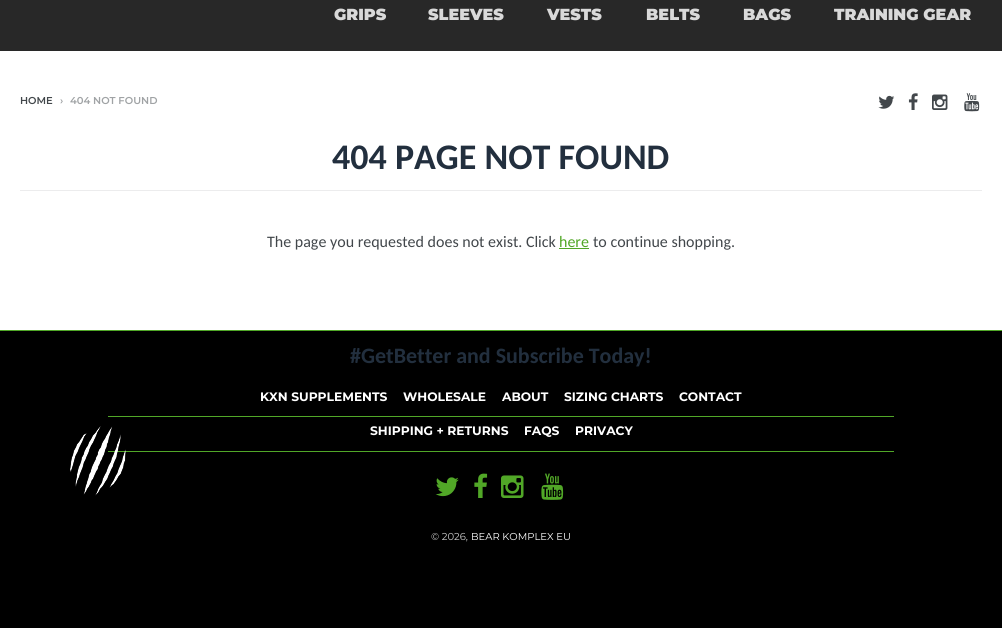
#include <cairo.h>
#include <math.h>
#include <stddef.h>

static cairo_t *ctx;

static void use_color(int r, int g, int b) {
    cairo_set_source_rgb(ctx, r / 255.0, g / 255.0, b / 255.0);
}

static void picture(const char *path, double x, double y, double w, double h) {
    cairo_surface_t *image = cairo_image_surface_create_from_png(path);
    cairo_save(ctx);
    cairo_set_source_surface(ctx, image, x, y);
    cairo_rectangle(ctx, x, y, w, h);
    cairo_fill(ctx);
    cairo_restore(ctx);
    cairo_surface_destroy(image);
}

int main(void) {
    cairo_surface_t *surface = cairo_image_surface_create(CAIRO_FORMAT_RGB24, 1002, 628);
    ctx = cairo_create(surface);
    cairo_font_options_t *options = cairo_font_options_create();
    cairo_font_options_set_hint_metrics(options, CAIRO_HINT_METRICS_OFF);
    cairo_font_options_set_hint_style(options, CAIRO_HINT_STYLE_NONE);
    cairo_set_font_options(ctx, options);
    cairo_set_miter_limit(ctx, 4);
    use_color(0, 0, 0);
    cairo_paint(ctx);
    use_color(255, 255, 255);
    cairo_rectangle(ctx, 0, 51, 1002, 279);
    cairo_fill(ctx);
    use_color(40, 40, 40);
    cairo_rectangle(ctx, 0, 0, 1002, 51);
    cairo_fill(ctx);
    cairo_select_font_face(ctx, "Montserrat Black", CAIRO_FONT_SLANT_NORMAL, CAIRO_FONT_WEIGHT_NORMAL);
    cairo_set_font_size(ctx, 16);
    use_color(217, 217, 217);
    cairo_move_to(ctx, 334, 20);
    cairo_show_text(ctx, "GRIPS");
    cairo_move_to(ctx, 428, 20);
    cairo_show_text(ctx, "SLEEVES");
    cairo_move_to(ctx, 547, 20);
    cairo_show_text(ctx, "VESTS");
    cairo_move_to(ctx, 646, 20);
    cairo_show_text(ctx, "BELTS");
    cairo_move_to(ctx, 743, 20);
    cairo_show_text(ctx, "BAGS");
    cairo_move_to(ctx, 834, 20);
    cairo_show_text(ctx, "TRAINING GEAR");
    cairo_select_font_face(ctx, "Montserrat SemiBold", CAIRO_FONT_SLANT_NORMAL, CAIRO_FONT_WEIGHT_NORMAL);
    cairo_set_font_size(ctx, 10);
    use_color(66, 71, 75);
    cairo_move_to(ctx, 20, 104);
    cairo_show_text(ctx, "HOME");
    use_color(160, 163, 165);
    cairo_move_to(ctx, 60, 104);
    cairo_show_text(ctx, "›");
    cairo_move_to(ctx, 70, 104);
    cairo_show_text(ctx, "404 NOT FOUND");
    picture("img1.png", 878, 95, 17, 14);
    picture("img2.png", 908, 93, 10, 17);
    picture("img3.png", 932, 94, 16, 16);
    picture("img4.png", 964, 93, 16, 19);
    use_color(236, 236, 237);
    cairo_rectangle(ctx, 20, 190, 962, 1);
    cairo_fill(ctx);
    cairo_select_font_face(ctx, "Carlito", CAIRO_FONT_SLANT_NORMAL, CAIRO_FONT_WEIGHT_BOLD);
    cairo_set_font_size(ctx, 36);
    use_color(34, 47, 62);
    cairo_move_to(ctx, 332, 169);
    cairo_show_text(ctx, "404 PAGE NOT FOUND");
    cairo_select_font_face(ctx, "Carlito", CAIRO_FONT_SLANT_NORMAL, CAIRO_FONT_WEIGHT_NORMAL);
    cairo_set_font_size(ctx, 16);
    use_color(66, 71, 75);
    cairo_move_to(ctx, 267, 247);
    cairo_show_text(ctx, "The page you requested does not exist. Click");
    use_color(81, 167, 39);
    cairo_move_to(ctx, 559, 247);
    cairo_show_text(ctx, "here");
    cairo_rectangle(ctx, 559, 248, 30, 1);
    cairo_fill(ctx);
    use_color(66, 71, 75);
    cairo_move_to(ctx, 593, 247);
    cairo_show_text(ctx, "to continue shopping.");
    use_color(81, 167, 40);
    cairo_rectangle(ctx, 0, 330, 1002, 1);
    cairo_fill(ctx);
    cairo_select_font_face(ctx, "Carlito", CAIRO_FONT_SLANT_NORMAL, CAIRO_FONT_WEIGHT_BOLD);
    cairo_set_font_size(ctx, 22);
    use_color(34, 47, 62);
    cairo_move_to(ctx, 350, 363);
    cairo_show_text(ctx, "#GetBetter and Subscribe Today!");
    use_color(81, 167, 40);
    cairo_rectangle(ctx, 108, 416, 786, 1);
    cairo_fill(ctx);
    cairo_select_font_face(ctx, "Montserrat", CAIRO_FONT_SLANT_NORMAL, CAIRO_FONT_WEIGHT_BOLD);
    cairo_set_font_size(ctx, 12.25);
    use_color(255, 255, 255);
    cairo_move_to(ctx, 260, 401);
    cairo_show_text(ctx, "KXN SUPPLEMENTS");
    cairo_move_to(ctx, 403, 401);
    cairo_show_text(ctx, "WHOLESALE");
    cairo_move_to(ctx, 502, 401);
    cairo_show_text(ctx, "ABOUT");
    cairo_move_to(ctx, 564, 401);
    cairo_show_text(ctx, "SIZING CHARTS");
    cairo_move_to(ctx, 679, 401);
    cairo_show_text(ctx, "CONTACT");
    use_color(81, 167, 40);
    cairo_rectangle(ctx, 108, 451, 786, 1);
    cairo_fill(ctx);
    picture("img5.png", 70, 426, 56, 70);
    use_color(255, 255, 255);
    cairo_move_to(ctx, 370, 435);
    cairo_show_text(ctx, "SHIPPING + RETURNS");
    cairo_move_to(ctx, 524, 435);
    cairo_show_text(ctx, "FAQS");
    cairo_move_to(ctx, 575, 435);
    cairo_show_text(ctx, "PRIVACY");
    picture("img6.png", 435, 477, 24, 20);
    picture("img7.png", 474, 473, 14, 25);
    picture("img8.png", 501, 475, 23, 23);
    picture("img9.png", 541, 473, 23, 27);
    cairo_select_font_face(ctx, "Montserrat", CAIRO_FONT_SLANT_NORMAL, CAIRO_FONT_WEIGHT_NORMAL);
    cairo_set_font_size(ctx, 10);
    use_color(204, 204, 204);
    cairo_move_to(ctx, 431, 540);
    cairo_show_text(ctx, "© 2026,");
    use_color(255, 255, 255);
    cairo_move_to(ctx, 471, 540);
    cairo_show_text(ctx, "BEAR KOMPLEX EU");
    cairo_surface_write_to_png(surface, "result.png");
    cairo_font_options_destroy(options);
    cairo_destroy(ctx);
    cairo_surface_destroy(surface);
    return 0;
}
